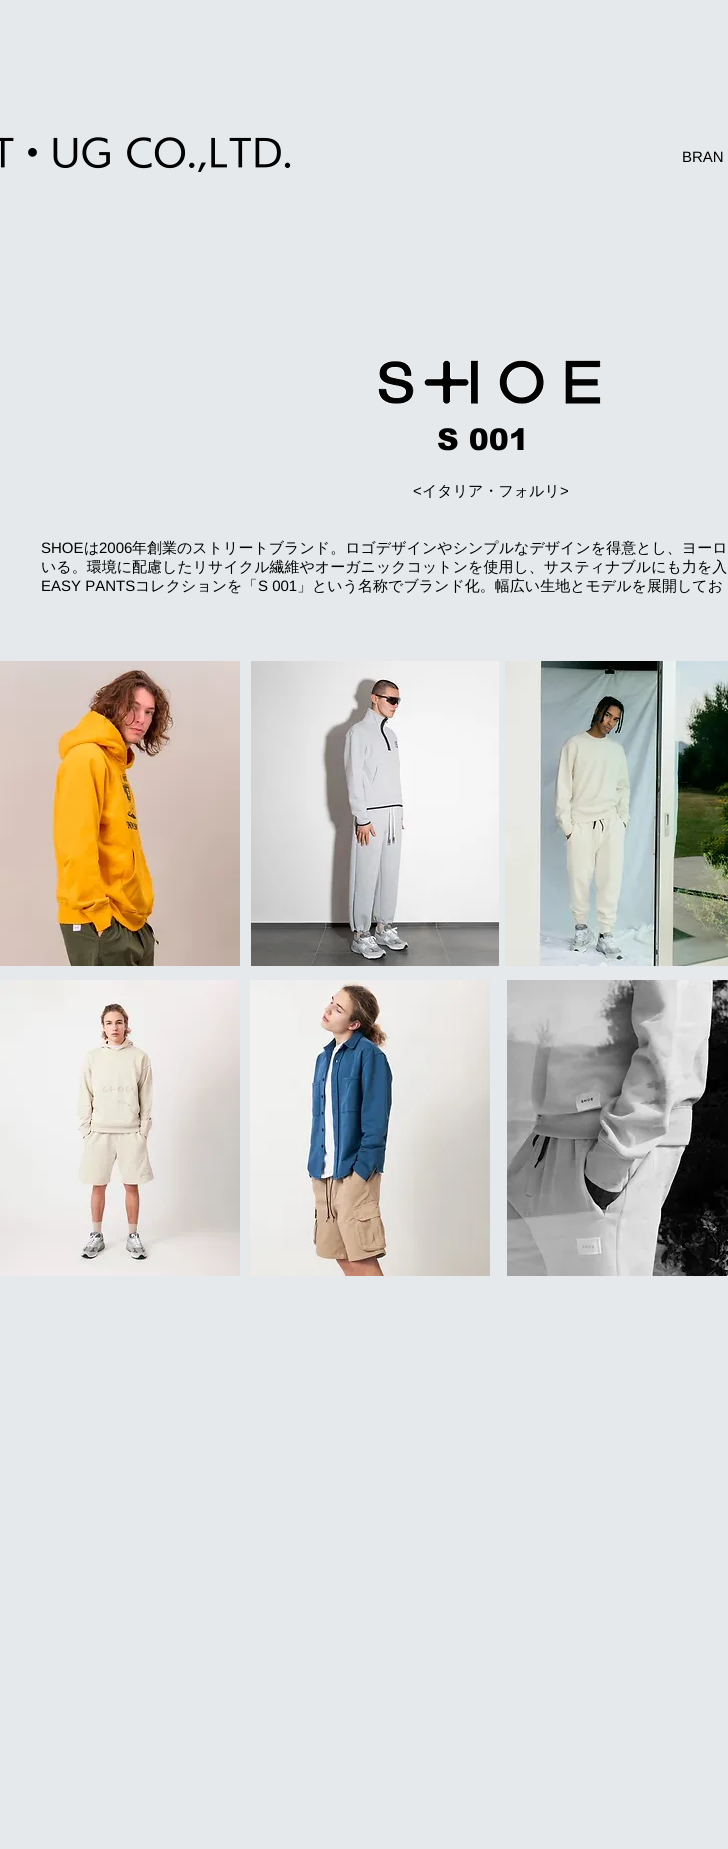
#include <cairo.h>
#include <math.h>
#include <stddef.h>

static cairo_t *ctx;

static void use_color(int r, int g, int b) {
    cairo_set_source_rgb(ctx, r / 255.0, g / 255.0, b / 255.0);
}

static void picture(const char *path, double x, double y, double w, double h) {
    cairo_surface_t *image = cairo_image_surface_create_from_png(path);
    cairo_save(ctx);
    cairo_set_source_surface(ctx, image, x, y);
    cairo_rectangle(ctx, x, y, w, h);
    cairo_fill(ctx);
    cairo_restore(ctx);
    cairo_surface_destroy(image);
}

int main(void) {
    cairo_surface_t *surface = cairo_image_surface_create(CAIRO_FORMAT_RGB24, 728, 1849);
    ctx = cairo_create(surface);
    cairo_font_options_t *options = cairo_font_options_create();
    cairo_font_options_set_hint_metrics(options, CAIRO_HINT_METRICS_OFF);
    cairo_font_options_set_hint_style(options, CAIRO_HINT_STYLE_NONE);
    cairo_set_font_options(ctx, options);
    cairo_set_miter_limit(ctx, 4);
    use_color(230, 233, 235);
    cairo_paint(ctx);
    cairo_select_font_face(ctx, "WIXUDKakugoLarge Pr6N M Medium", CAIRO_FONT_SLANT_NORMAL, CAIRO_FONT_WEIGHT_NORMAL);
    cairo_set_font_size(ctx, 36);
    use_color(0, 0, 0);
    cairo_move_to(ctx, -9, 166);
    cairo_show_text(ctx, "T・UG CO.,LTD.");
    cairo_select_font_face(ctx, "Liberation Sans", CAIRO_FONT_SLANT_NORMAL, CAIRO_FONT_WEIGHT_NORMAL);
    cairo_set_font_size(ctx, 15);
    cairo_move_to(ctx, 682, 162);
    cairo_show_text(ctx, "BRAN");
    picture("img1.png", 378, 360, 223, 44);
    cairo_select_font_face(ctx, "arial Black", CAIRO_FONT_SLANT_NORMAL, CAIRO_FONT_WEIGHT_NORMAL);
    cairo_set_font_size(ctx, 30);
    cairo_move_to(ctx, 437, 450);
    cairo_show_text(ctx, "S 001");
    cairo_select_font_face(ctx, "Liberation Sans", CAIRO_FONT_SLANT_NORMAL, CAIRO_FONT_WEIGHT_NORMAL);
    cairo_set_font_size(ctx, 15);
    cairo_move_to(ctx, 413, 496);
    cairo_show_text(ctx, "<");
    cairo_select_font_face(ctx, "WenQuanYi Zen Hei Medium", CAIRO_FONT_SLANT_NORMAL, CAIRO_FONT_WEIGHT_NORMAL);
    cairo_move_to(ctx, 422, 496);
    cairo_show_text(ctx, "イタリア・フォルリ");
    cairo_select_font_face(ctx, "Liberation Sans", CAIRO_FONT_SLANT_NORMAL, CAIRO_FONT_WEIGHT_NORMAL);
    cairo_move_to(ctx, 560, 496);
    cairo_show_text(ctx, ">");
    cairo_move_to(ctx, 41, 553);
    cairo_show_text(ctx, "SHOE");
    cairo_select_font_face(ctx, "WenQuanYi Zen Hei Medium", CAIRO_FONT_SLANT_NORMAL, CAIRO_FONT_WEIGHT_NORMAL);
    cairo_move_to(ctx, 84, 553);
    cairo_show_text(ctx, "は");
    cairo_select_font_face(ctx, "Liberation Sans", CAIRO_FONT_SLANT_NORMAL, CAIRO_FONT_WEIGHT_NORMAL);
    cairo_move_to(ctx, 99, 553);
    cairo_show_text(ctx, "2006");
    cairo_select_font_face(ctx, "WenQuanYi Zen Hei Medium", CAIRO_FONT_SLANT_NORMAL, CAIRO_FONT_WEIGHT_NORMAL);
    cairo_move_to(ctx, 132, 553);
    cairo_show_text(ctx, "年創業のストリートブランド。ロゴデザインやシンプルなデザインを得意とし、ヨーロ");
    cairo_move_to(ctx, 41, 572);
    cairo_show_text(ctx, "いる。環境に配慮したリサイクル繊維やオーガニックコットンを使用し、サスティナブルにも力を入");
    cairo_select_font_face(ctx, "Liberation Sans", CAIRO_FONT_SLANT_NORMAL, CAIRO_FONT_WEIGHT_NORMAL);
    cairo_move_to(ctx, 41, 591);
    cairo_show_text(ctx, "EASY PANTS");
    cairo_select_font_face(ctx, "WenQuanYi Zen Hei Medium", CAIRO_FONT_SLANT_NORMAL, CAIRO_FONT_WEIGHT_NORMAL);
    cairo_move_to(ctx, 135, 591);
    cairo_show_text(ctx, "コレクションを「");
    cairo_select_font_face(ctx, "Liberation Sans", CAIRO_FONT_SLANT_NORMAL, CAIRO_FONT_WEIGHT_NORMAL);
    cairo_move_to(ctx, 258, 591);
    cairo_show_text(ctx, "S 001");
    cairo_select_font_face(ctx, "WenQuanYi Zen Hei Medium", CAIRO_FONT_SLANT_NORMAL, CAIRO_FONT_WEIGHT_NORMAL);
    cairo_move_to(ctx, 297, 591);
    cairo_show_text(ctx, "」という名称でブランド化。幅広い生地とモデルを展開してお");
    picture("img2.png", 0, 661, 240, 305);
    picture("img3.png", 251, 661, 248, 305);
    picture("img4.png", 505, 661, 223, 305);
    picture("img5.png", 0, 980, 240, 296);
    picture("img6.png", 250, 980, 240, 296);
    picture("img7.png", 507, 980, 221, 296);
    cairo_surface_write_to_png(surface, "result.png");
    cairo_font_options_destroy(options);
    cairo_destroy(ctx);
    cairo_surface_destroy(surface);
    return 0;
}
